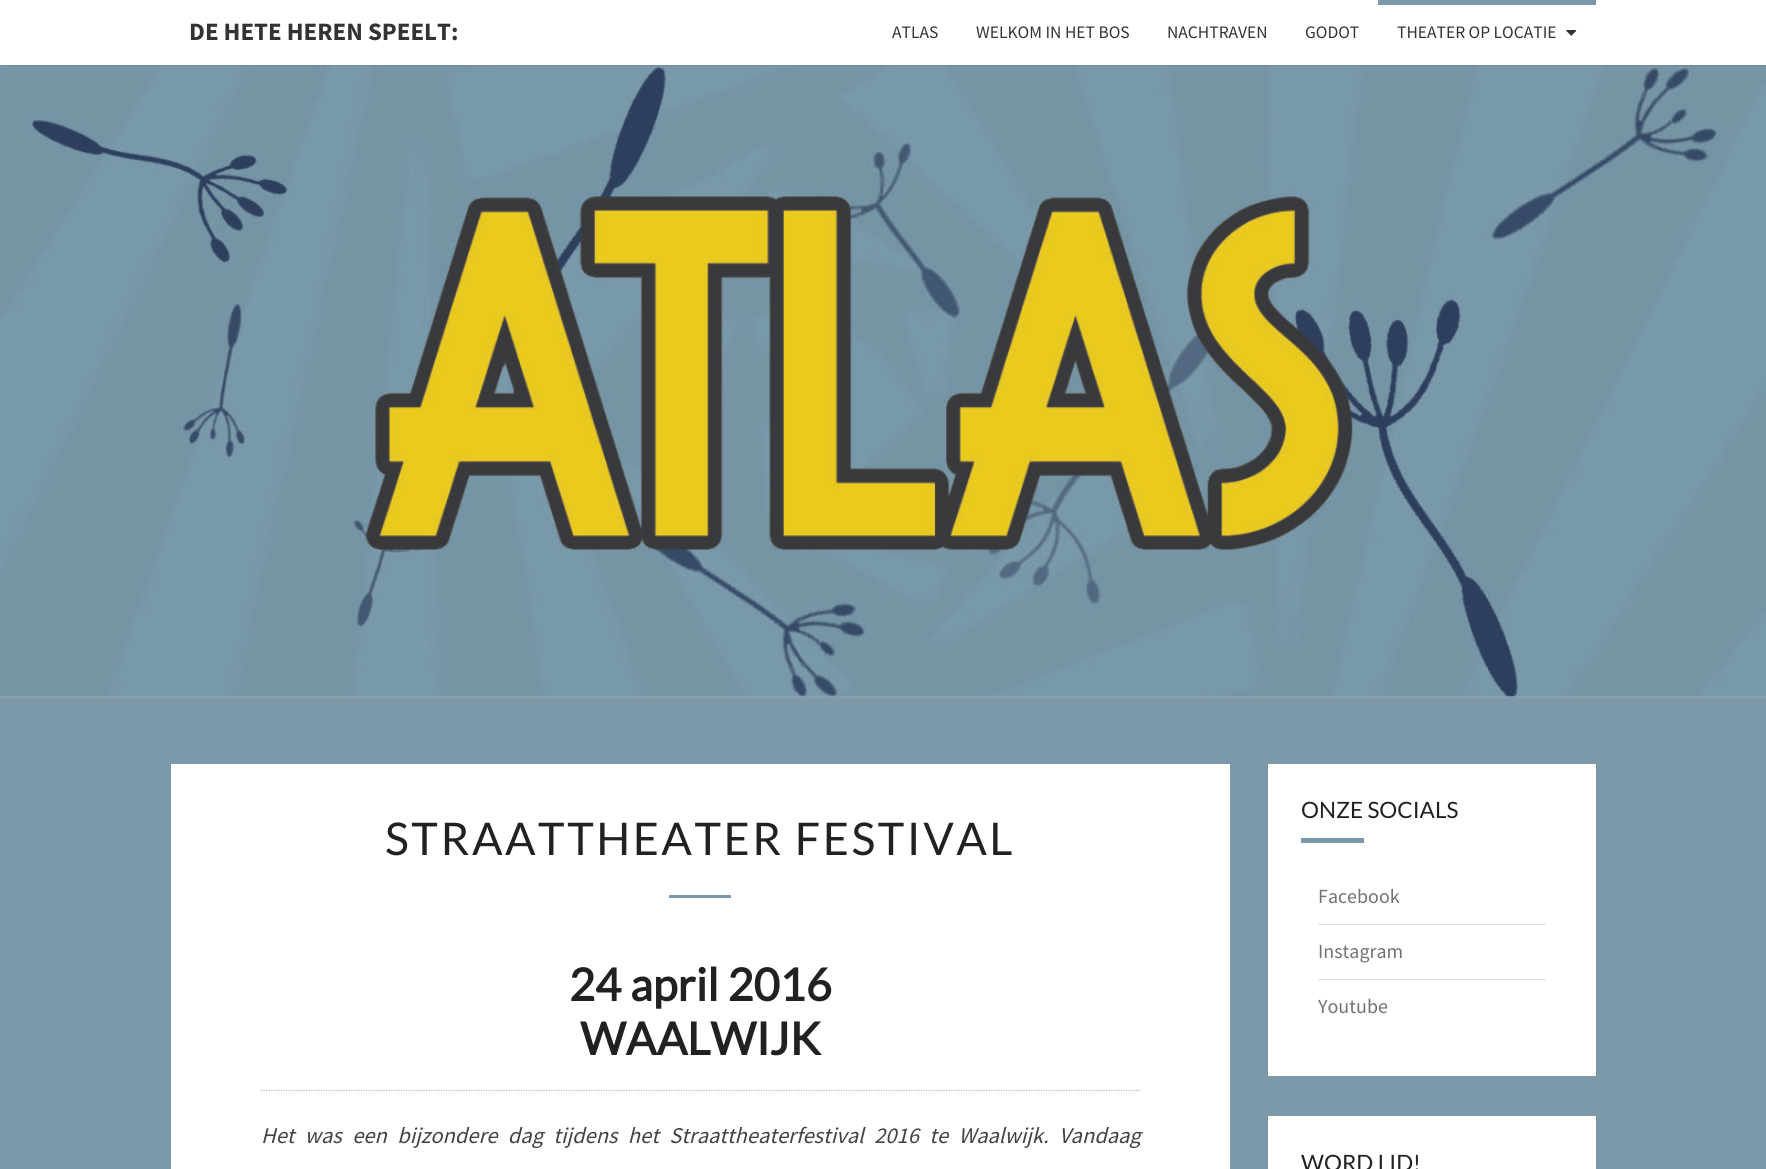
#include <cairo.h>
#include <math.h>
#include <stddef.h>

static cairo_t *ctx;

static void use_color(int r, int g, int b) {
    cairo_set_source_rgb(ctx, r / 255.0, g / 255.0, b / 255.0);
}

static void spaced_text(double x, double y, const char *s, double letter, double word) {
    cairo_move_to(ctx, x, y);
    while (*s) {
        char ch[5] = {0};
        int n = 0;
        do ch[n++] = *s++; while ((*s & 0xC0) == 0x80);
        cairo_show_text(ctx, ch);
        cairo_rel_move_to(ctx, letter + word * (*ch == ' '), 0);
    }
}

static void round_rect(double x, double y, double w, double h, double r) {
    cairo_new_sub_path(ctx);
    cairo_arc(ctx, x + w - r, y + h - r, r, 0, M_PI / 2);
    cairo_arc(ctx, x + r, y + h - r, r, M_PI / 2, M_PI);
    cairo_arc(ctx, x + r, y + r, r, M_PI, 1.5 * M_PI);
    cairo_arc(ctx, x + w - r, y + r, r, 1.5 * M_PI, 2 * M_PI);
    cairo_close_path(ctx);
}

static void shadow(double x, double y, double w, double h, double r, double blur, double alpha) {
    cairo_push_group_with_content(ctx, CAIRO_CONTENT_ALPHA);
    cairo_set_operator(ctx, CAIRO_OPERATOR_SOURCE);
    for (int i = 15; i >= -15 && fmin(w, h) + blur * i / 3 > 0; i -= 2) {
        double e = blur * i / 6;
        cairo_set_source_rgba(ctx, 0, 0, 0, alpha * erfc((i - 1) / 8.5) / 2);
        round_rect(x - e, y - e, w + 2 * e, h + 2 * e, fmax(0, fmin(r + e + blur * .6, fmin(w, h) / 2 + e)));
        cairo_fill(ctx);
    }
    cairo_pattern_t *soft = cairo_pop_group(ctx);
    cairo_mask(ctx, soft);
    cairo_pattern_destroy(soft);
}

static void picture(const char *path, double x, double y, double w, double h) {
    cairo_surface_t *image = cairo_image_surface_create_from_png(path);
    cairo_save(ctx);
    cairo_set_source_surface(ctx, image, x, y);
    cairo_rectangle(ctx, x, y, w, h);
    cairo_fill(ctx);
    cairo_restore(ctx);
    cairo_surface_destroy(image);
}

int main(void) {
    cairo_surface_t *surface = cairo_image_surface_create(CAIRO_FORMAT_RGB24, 1766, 1169);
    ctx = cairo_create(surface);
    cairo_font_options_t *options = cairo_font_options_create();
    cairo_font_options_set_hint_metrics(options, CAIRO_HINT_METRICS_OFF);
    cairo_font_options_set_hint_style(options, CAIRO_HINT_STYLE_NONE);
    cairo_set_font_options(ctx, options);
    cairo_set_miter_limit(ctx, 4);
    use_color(123, 153, 170);
    cairo_paint(ctx);
    use_color(182, 182, 182);
    shadow(-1, 64, 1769, 634, 0, 1, 0.3);
    picture("img2.png", 0, 65, 1766, 632);
    use_color(100, 100, 100);
    shadow(0, 1, 1766, 65, 0, 0.5, 0.2);
    use_color(255, 255, 255);
    cairo_rectangle(ctx, 0, 0, 1766, 65);
    cairo_fill(ctx);
    cairo_select_font_face(ctx, "Source Sans Pro", CAIRO_FONT_SLANT_NORMAL, CAIRO_FONT_WEIGHT_BOLD);
    cairo_set_font_size(ctx, 25);
    use_color(51, 51, 51);
    cairo_move_to(ctx, 189, 40);
    cairo_show_text(ctx, "DE HETE HEREN SPEELT:");
    cairo_select_font_face(ctx, "Source Sans Pro", CAIRO_FONT_SLANT_NORMAL, CAIRO_FONT_WEIGHT_NORMAL);
    cairo_set_font_size(ctx, 17.5);
    cairo_move_to(ctx, 892, 38);
    cairo_show_text(ctx, "ATLAS");
    cairo_move_to(ctx, 976, 38);
    cairo_show_text(ctx, "WELKOM IN HET BOS");
    cairo_move_to(ctx, 1167, 38);
    cairo_show_text(ctx, "NACHTRAVEN");
    cairo_move_to(ctx, 1305, 38);
    cairo_show_text(ctx, "GODOT");
    use_color(123, 153, 170);
    cairo_rectangle(ctx, 1378, 0, 218, 5);
    cairo_fill(ctx);
    use_color(51, 51, 51);
    cairo_move_to(ctx, 1397, 38);
    cairo_show_text(ctx, "THEATER OP LOCATIE");
    picture("img1.png", 1566, 30, 11, 6);
    use_color(255, 255, 255);
    cairo_rectangle(ctx, 171, 764, 1059, 405);
    cairo_fill(ctx);
    cairo_select_font_face(ctx, "Lato", CAIRO_FONT_SLANT_NORMAL, CAIRO_FONT_WEIGHT_NORMAL);
    cairo_set_font_size(ctx, 45);
    use_color(33, 33, 33);
    spaced_text(385, 855, "STRAATTHEATER FESTIVAL", 2.5, 0);
    use_color(123, 153, 170);
    cairo_rectangle(ctx, 669, 895, 62, 3);
    cairo_fill(ctx);
    cairo_select_font_face(ctx, "Lato", CAIRO_FONT_SLANT_NORMAL, CAIRO_FONT_WEIGHT_BOLD);
    use_color(33, 33, 33);
    cairo_move_to(ctx, 569, 1001);
    cairo_show_text(ctx, "24 april 2016");
    cairo_move_to(ctx, 580, 1055);
    cairo_show_text(ctx, "WAALWIJK");
    cairo_new_path(ctx);
    cairo_move_to(ctx, 261, 1090.5);
    cairo_line_to(ctx, 1140, 1090.5);
    use_color(182, 182, 182);
    cairo_set_line_width(ctx, 1.2);
    cairo_set_dash(ctx, (double[]){1.25, 1.25}, 2, 0);
    cairo_stroke(ctx);
    cairo_select_font_face(ctx, "Source Sans Pro", CAIRO_FONT_SLANT_ITALIC, CAIRO_FONT_WEIGHT_NORMAL);
    cairo_set_font_size(ctx, 22.5);
    use_color(66, 66, 66);
    spaced_text(261, 1143, "Het was een bijzondere dag tijdens het Straattheaterfestival 2016 te Waalwijk. Vandaag", 0, 5.9);
    use_color(255, 255, 255);
    cairo_rectangle(ctx, 1268, 764, 328, 312);
    cairo_fill(ctx);
    cairo_select_font_face(ctx, "Lato", CAIRO_FONT_SLANT_NORMAL, CAIRO_FONT_WEIGHT_NORMAL);
    use_color(33, 33, 33);
    cairo_move_to(ctx, 1301, 818);
    cairo_show_text(ctx, "ONZE SOCIALS");
    use_color(123, 153, 170);
    cairo_rectangle(ctx, 1301, 838, 63, 5);
    cairo_fill(ctx);
    use_color(221, 221, 221);
    cairo_rectangle(ctx, 1318, 924, 228, 1);
    cairo_fill(ctx);
    cairo_select_font_face(ctx, "Source Sans Pro", CAIRO_FONT_SLANT_NORMAL, CAIRO_FONT_WEIGHT_NORMAL);
    cairo_set_font_size(ctx, 20);
    use_color(114, 114, 114);
    cairo_move_to(ctx, 1318, 903);
    cairo_show_text(ctx, "Facebook");
    use_color(221, 221, 221);
    cairo_rectangle(ctx, 1318, 979, 228, 1);
    cairo_fill(ctx);
    use_color(114, 114, 114);
    cairo_move_to(ctx, 1318, 958);
    cairo_show_text(ctx, "Instagram");
    cairo_move_to(ctx, 1318, 1013);
    cairo_show_text(ctx, "Youtube");
    use_color(255, 255, 255);
    cairo_rectangle(ctx, 1268, 1116, 328, 53);
    cairo_fill(ctx);
    cairo_select_font_face(ctx, "Lato", CAIRO_FONT_SLANT_NORMAL, CAIRO_FONT_WEIGHT_NORMAL);
    cairo_set_font_size(ctx, 22.5);
    use_color(33, 33, 33);
    cairo_move_to(ctx, 1301, 1171);
    cairo_show_text(ctx, "WORD LID!");
    cairo_surface_write_to_png(surface, "result.png");
    cairo_font_options_destroy(options);
    cairo_destroy(ctx);
    cairo_surface_destroy(surface);
    return 0;
}
